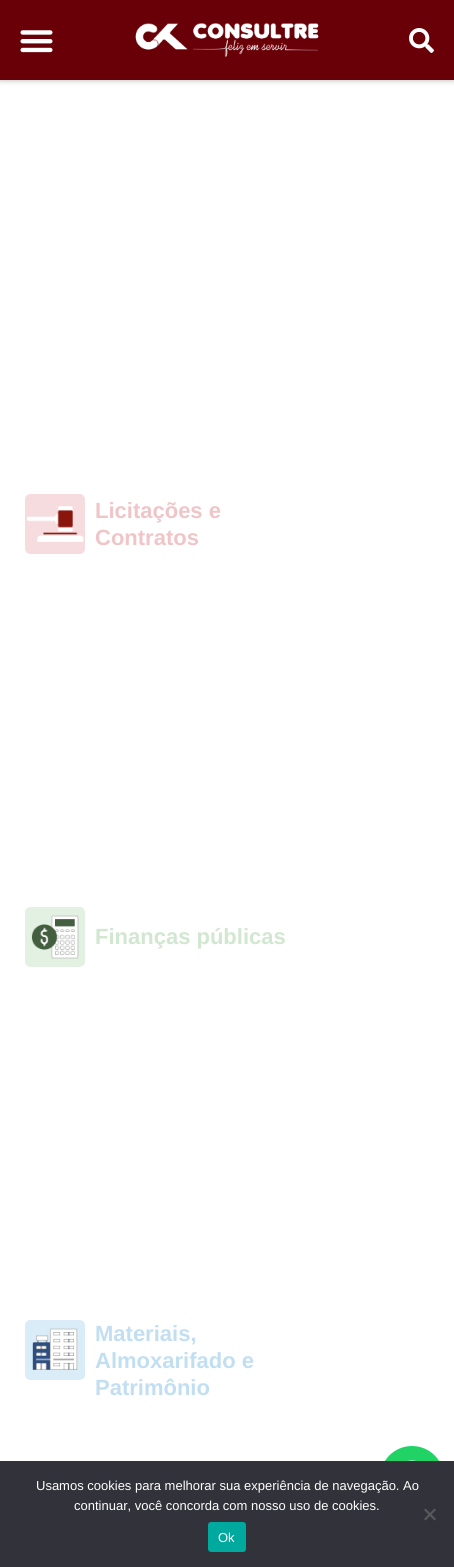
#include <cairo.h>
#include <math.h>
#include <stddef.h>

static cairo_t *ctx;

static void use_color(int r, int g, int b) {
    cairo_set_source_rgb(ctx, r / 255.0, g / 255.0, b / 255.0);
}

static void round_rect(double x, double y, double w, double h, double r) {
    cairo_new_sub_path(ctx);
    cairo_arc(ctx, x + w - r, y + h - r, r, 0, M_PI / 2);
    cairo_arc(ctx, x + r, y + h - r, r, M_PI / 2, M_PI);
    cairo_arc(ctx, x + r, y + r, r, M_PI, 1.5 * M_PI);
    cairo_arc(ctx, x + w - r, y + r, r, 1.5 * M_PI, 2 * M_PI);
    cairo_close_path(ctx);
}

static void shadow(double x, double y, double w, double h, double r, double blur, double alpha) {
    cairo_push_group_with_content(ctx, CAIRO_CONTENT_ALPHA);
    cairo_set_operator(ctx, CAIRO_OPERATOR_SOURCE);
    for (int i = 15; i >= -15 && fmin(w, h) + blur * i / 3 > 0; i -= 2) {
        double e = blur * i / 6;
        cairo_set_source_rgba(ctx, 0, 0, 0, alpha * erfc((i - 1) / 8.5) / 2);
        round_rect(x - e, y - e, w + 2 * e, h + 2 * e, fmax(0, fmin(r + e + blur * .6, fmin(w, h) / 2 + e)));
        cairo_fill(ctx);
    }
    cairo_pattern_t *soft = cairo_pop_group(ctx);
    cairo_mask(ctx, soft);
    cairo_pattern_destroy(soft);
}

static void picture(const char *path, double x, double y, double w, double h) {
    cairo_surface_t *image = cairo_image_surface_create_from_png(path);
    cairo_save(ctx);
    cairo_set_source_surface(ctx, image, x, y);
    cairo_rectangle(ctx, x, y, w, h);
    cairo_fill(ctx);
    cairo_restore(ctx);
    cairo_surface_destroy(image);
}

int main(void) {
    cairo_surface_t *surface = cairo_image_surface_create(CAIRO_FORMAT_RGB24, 454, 1567);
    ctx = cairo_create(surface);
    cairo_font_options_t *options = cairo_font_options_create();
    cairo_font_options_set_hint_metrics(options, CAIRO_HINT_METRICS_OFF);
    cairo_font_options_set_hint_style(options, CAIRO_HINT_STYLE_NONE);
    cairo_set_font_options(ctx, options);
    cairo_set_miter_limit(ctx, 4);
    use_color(255, 255, 255);
    cairo_paint(ctx);
    use_color(0, 0, 0);
    shadow(0, 0, 454, 80, 0, 3, 0.3);
    use_color(105, 0, 7);
    cairo_rectangle(ctx, 0, 0, 454, 80);
    cairo_fill(ctx);
    picture("img1.png", 20, 30, 33, 23);
    picture("img2.png", 135, 23, 184, 34);
    picture("img3.png", 409, 28, 25, 25);
    picture("img4.png", 25, 494, 60, 60);
    cairo_select_font_face(ctx, "Liberation Sans", CAIRO_FONT_SLANT_NORMAL, CAIRO_FONT_WEIGHT_BOLD);
    cairo_set_font_size(ctx, 22);
    use_color(240, 197, 200);
    cairo_move_to(ctx, 95, 518);
    cairo_show_text(ctx, "Licitações e");
    cairo_move_to(ctx, 95, 545);
    cairo_show_text(ctx, "Contratos");
    picture("img5.png", 25, 907, 60, 60);
    use_color(209, 231, 208);
    cairo_move_to(ctx, 95, 944);
    cairo_show_text(ctx, "Finanças públicas");
    picture("img6.png", 25, 1320, 60, 60);
    use_color(193, 223, 241);
    cairo_move_to(ctx, 95, 1341);
    cairo_show_text(ctx, "Materiais,");
    cairo_move_to(ctx, 95, 1368);
    cairo_show_text(ctx, "Almoxarifado e");
    cairo_move_to(ctx, 95, 1395);
    cairo_show_text(ctx, "Patrimônio");
    use_color(33, 211, 101);
    cairo_new_path(ctx);
    cairo_arc(ctx, 412, 1478, 32, 0, 2 * M_PI);
    cairo_fill(ctx);
    picture("img7.png", 408, 1460, 8, 1);
    use_color(50, 50, 58);
    cairo_rectangle(ctx, 0, 1461, 454, 106);
    cairo_fill(ctx);
    cairo_select_font_face(ctx, "Liberation Sans", CAIRO_FONT_SLANT_NORMAL, CAIRO_FONT_WEIGHT_NORMAL);
    cairo_set_font_size(ctx, 13);
    use_color(255, 255, 255);
    cairo_move_to(ctx, 36, 1490);
    cairo_show_text(ctx, "Usamos cookies para melhorar sua experiência de navegação. Ao");
    cairo_move_to(ctx, 74, 1510);
    cairo_show_text(ctx, "continuar, você concorda com nosso uso de cookies.");
    use_color(89, 89, 93);
    cairo_new_path(ctx);
    cairo_move_to(ctx, 434.5, 1508.5);
    cairo_line_to(ctx, 436, 1510);
    cairo_line_to(ctx, 425.5, 1520.5);
    cairo_line_to(ctx, 424, 1519);
    cairo_close_path(ctx);
    cairo_fill(ctx);
    cairo_new_path(ctx);
    cairo_move_to(ctx, 424, 1510);
    cairo_line_to(ctx, 425.5, 1508.5);
    cairo_line_to(ctx, 436, 1519);
    cairo_line_to(ctx, 434.5, 1520.5);
    cairo_close_path(ctx);
    cairo_fill(ctx);
    use_color(0, 169, 157);
    round_rect(208, 1522, 38, 30, 3);
    cairo_fill(ctx);
    use_color(255, 255, 255);
    cairo_move_to(ctx, 218, 1542);
    cairo_show_text(ctx, "Ok");
    cairo_surface_write_to_png(surface, "result.png");
    cairo_font_options_destroy(options);
    cairo_destroy(ctx);
    cairo_surface_destroy(surface);
    return 0;
}
